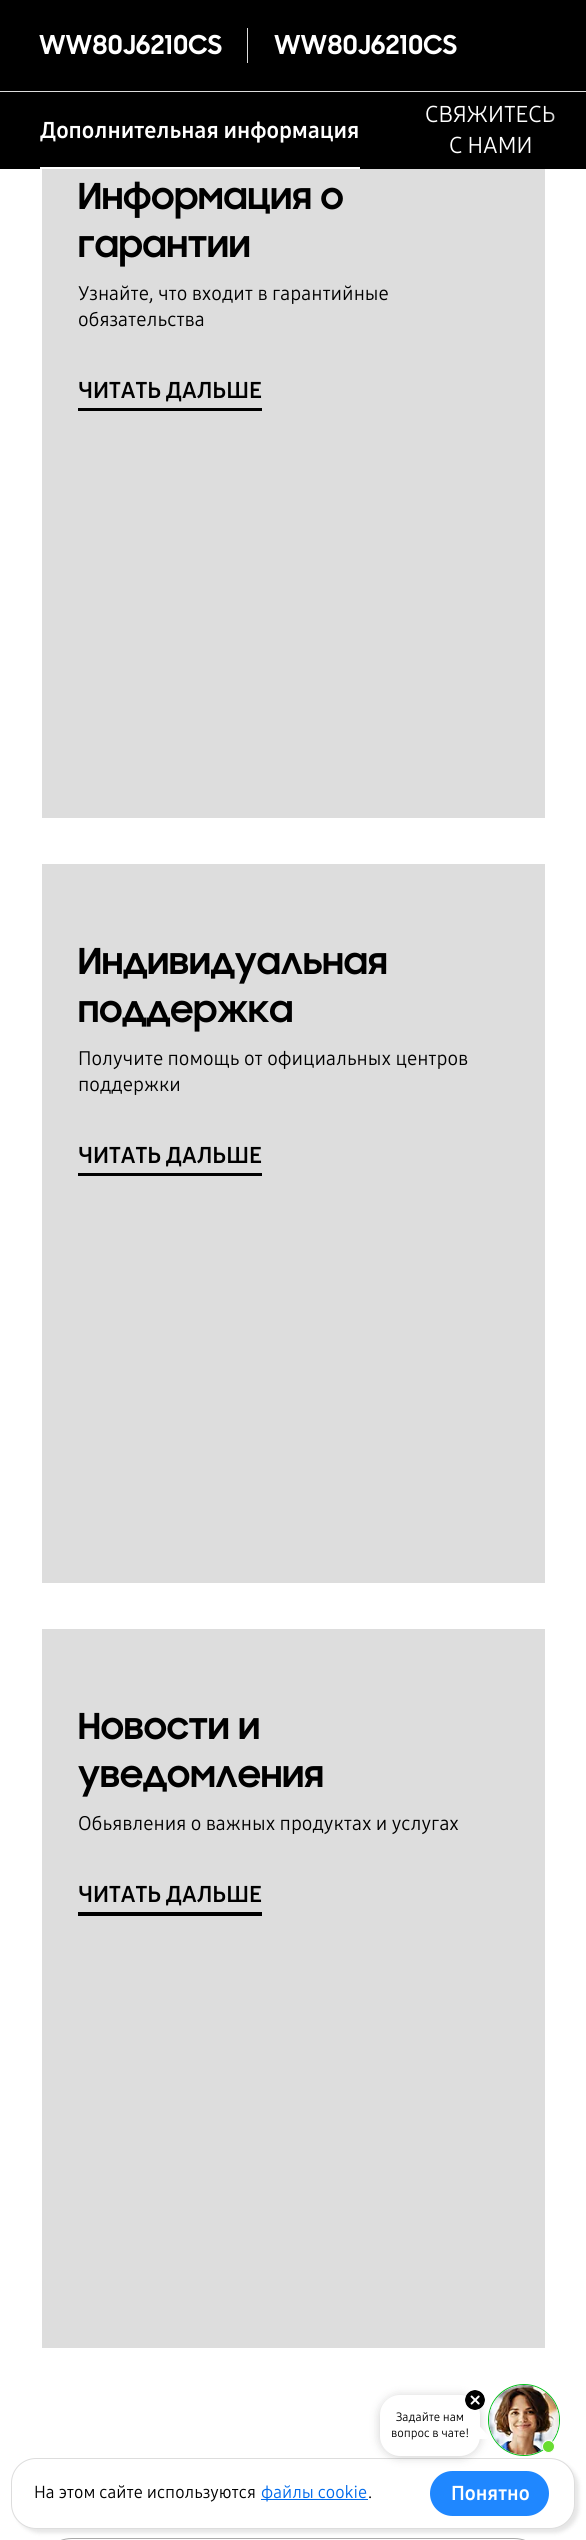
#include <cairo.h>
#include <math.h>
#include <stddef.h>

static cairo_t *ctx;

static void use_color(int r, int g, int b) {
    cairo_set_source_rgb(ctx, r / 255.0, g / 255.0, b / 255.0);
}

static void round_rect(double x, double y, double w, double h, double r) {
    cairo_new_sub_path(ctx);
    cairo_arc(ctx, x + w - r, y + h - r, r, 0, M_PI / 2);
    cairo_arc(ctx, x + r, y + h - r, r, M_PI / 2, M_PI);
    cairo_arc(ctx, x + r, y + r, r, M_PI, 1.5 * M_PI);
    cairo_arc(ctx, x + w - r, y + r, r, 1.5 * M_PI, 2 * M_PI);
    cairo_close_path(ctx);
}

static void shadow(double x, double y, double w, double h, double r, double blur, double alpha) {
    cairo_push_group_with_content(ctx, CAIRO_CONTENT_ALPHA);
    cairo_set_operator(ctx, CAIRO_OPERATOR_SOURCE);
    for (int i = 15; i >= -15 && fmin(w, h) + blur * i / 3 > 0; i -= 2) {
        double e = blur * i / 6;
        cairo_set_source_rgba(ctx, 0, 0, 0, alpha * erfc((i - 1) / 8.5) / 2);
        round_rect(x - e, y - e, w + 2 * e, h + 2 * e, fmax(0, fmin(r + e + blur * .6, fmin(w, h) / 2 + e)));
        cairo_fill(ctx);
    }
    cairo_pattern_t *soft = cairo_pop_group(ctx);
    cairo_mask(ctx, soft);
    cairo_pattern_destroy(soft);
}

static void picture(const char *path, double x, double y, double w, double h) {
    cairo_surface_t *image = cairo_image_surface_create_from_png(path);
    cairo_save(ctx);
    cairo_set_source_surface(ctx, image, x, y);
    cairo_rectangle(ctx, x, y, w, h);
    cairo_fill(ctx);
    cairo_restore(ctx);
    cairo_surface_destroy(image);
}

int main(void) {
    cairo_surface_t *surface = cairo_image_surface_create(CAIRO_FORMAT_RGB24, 586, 2540);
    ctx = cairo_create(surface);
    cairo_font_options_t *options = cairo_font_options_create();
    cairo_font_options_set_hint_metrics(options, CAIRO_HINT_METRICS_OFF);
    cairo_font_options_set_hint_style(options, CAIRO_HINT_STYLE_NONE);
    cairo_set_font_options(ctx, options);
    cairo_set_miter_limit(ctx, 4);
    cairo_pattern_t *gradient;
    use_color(255, 255, 255);
    cairo_paint(ctx);
    use_color(0, 0, 0);
    cairo_rectangle(ctx, 0, 0, 586, 169);
    cairo_fill(ctx);
    cairo_select_font_face(ctx, "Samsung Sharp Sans", CAIRO_FONT_SLANT_NORMAL, CAIRO_FONT_WEIGHT_BOLD);
    cairo_set_font_size(ctx, 26);
    use_color(255, 255, 255);
    cairo_move_to(ctx, 39, 54);
    cairo_show_text(ctx, "WW80J6210CS");
    use_color(221, 221, 221);
    cairo_rectangle(ctx, 247, 28, 1, 35);
    cairo_fill(ctx);
    use_color(255, 255, 255);
    cairo_move_to(ctx, 274, 54);
    cairo_show_text(ctx, "WW80J6210CS");
    use_color(221, 221, 221);
    cairo_rectangle(ctx, 0, 91, 586, 1);
    cairo_fill(ctx);
    cairo_select_font_face(ctx, "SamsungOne", CAIRO_FONT_SLANT_NORMAL, CAIRO_FONT_WEIGHT_BOLD);
    cairo_set_font_size(ctx, 22.75);
    use_color(255, 255, 255);
    cairo_move_to(ctx, 40, 138);
    cairo_show_text(ctx, "Дополнительная информация");
    cairo_rectangle(ctx, 40, 167, 320, 2);
    cairo_fill(ctx);
    cairo_select_font_face(ctx, "SamsungOne", CAIRO_FONT_SLANT_NORMAL, CAIRO_FONT_WEIGHT_NORMAL);
    cairo_move_to(ctx, 425, 122);
    cairo_show_text(ctx, "СВЯЖИТЕСЬ");
    cairo_move_to(ctx, 449, 153);
    cairo_show_text(ctx, "С НАМИ");
    gradient = cairo_pattern_create_linear(547, 131, 586, 131);
    cairo_pattern_add_color_stop_rgba(gradient, 0, 0, 0, 0, 0);
    cairo_pattern_add_color_stop_rgba(gradient, 0.98, 0, 0, 0, 1);
    cairo_set_source(ctx, gradient);
    cairo_pattern_destroy(gradient);
    cairo_rectangle(ctx, 548, 112, 7, 10);
    cairo_fill(ctx);
    use_color(221, 221, 221);
    cairo_rectangle(ctx, 42, 169, 503, 649);
    cairo_fill(ctx);
    cairo_select_font_face(ctx, "Samsung Sharp Sans", CAIRO_FONT_SLANT_NORMAL, CAIRO_FONT_WEIGHT_BOLD);
    cairo_set_font_size(ctx, 35.75);
    use_color(0, 0, 0);
    cairo_move_to(ctx, 78, 209);
    cairo_show_text(ctx, "Информация о");
    cairo_move_to(ctx, 78, 257);
    cairo_show_text(ctx, "гарантии");
    cairo_select_font_face(ctx, "SamsungOne", CAIRO_FONT_SLANT_NORMAL, CAIRO_FONT_WEIGHT_NORMAL);
    cairo_set_font_size(ctx, 19.5);
    cairo_move_to(ctx, 78, 300);
    cairo_show_text(ctx, "Узнайте, что входит в гарантийные");
    cairo_move_to(ctx, 78, 326);
    cairo_show_text(ctx, "обязательства");
    cairo_select_font_face(ctx, "SamsungOne", CAIRO_FONT_SLANT_NORMAL, CAIRO_FONT_WEIGHT_BOLD);
    cairo_set_font_size(ctx, 22.75);
    cairo_move_to(ctx, 78, 398);
    cairo_show_text(ctx, "ЧИТАТЬ ДАЛЬШЕ");
    cairo_rectangle(ctx, 78, 408, 184, 3);
    cairo_fill(ctx);
    use_color(221, 221, 221);
    cairo_rectangle(ctx, 42, 864, 503, 719);
    cairo_fill(ctx);
    cairo_select_font_face(ctx, "Samsung Sharp Sans", CAIRO_FONT_SLANT_NORMAL, CAIRO_FONT_WEIGHT_BOLD);
    cairo_set_font_size(ctx, 35.75);
    use_color(0, 0, 0);
    cairo_move_to(ctx, 78, 974);
    cairo_show_text(ctx, "Индивидуальная");
    cairo_move_to(ctx, 78, 1022);
    cairo_show_text(ctx, "поддержка");
    cairo_select_font_face(ctx, "SamsungOne", CAIRO_FONT_SLANT_NORMAL, CAIRO_FONT_WEIGHT_NORMAL);
    cairo_set_font_size(ctx, 19.5);
    cairo_move_to(ctx, 78, 1065);
    cairo_show_text(ctx, "Получите помощь от официальных центров");
    cairo_move_to(ctx, 78, 1091);
    cairo_show_text(ctx, "поддержки");
    cairo_select_font_face(ctx, "SamsungOne", CAIRO_FONT_SLANT_NORMAL, CAIRO_FONT_WEIGHT_BOLD);
    cairo_set_font_size(ctx, 22.75);
    cairo_move_to(ctx, 78, 1163);
    cairo_show_text(ctx, "ЧИТАТЬ ДАЛЬШЕ");
    cairo_rectangle(ctx, 78, 1173, 184, 3);
    cairo_fill(ctx);
    use_color(221, 221, 221);
    cairo_rectangle(ctx, 42, 1629, 503, 719);
    cairo_fill(ctx);
    cairo_select_font_face(ctx, "Samsung Sharp Sans", CAIRO_FONT_SLANT_NORMAL, CAIRO_FONT_WEIGHT_BOLD);
    cairo_set_font_size(ctx, 35.75);
    use_color(0, 0, 0);
    cairo_move_to(ctx, 78, 1739);
    cairo_show_text(ctx, "Новости и");
    cairo_move_to(ctx, 78, 1787);
    cairo_show_text(ctx, "уведомления");
    cairo_select_font_face(ctx, "SamsungOne", CAIRO_FONT_SLANT_NORMAL, CAIRO_FONT_WEIGHT_NORMAL);
    cairo_set_font_size(ctx, 19.5);
    cairo_move_to(ctx, 78, 1830);
    cairo_show_text(ctx, "Обьявления о важных продуктах и услугах");
    cairo_select_font_face(ctx, "SamsungOne", CAIRO_FONT_SLANT_NORMAL, CAIRO_FONT_WEIGHT_BOLD);
    cairo_set_font_size(ctx, 22.75);
    cairo_move_to(ctx, 78, 1902);
    cairo_show_text(ctx, "ЧИТАТЬ ДАЛЬШЕ");
    cairo_rectangle(ctx, 78, 1912, 184, 4);
    cairo_fill(ctx);
    round_rect(39.5, 2538.5, 507, 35, 32.5);
    use_color(170, 170, 170);
    cairo_set_line_width(ctx, 1);
    cairo_stroke(ctx);
    use_color(0, 0, 0);
    shadow(15, 2462, 564, 71, 25, 2, 0.1);
    cairo_arc(ctx, 524, 2420, 35.5, 0, 2 * M_PI);
    use_color(0, 194, 23);
    cairo_stroke(ctx);
    picture("img2.png", 489, 2385, 70, 70);
    use_color(255, 255, 255);
    round_rect(11.5, 2458.5, 563, 70, 24.5);
    cairo_fill_preserve(ctx);
    use_color(221, 221, 221);
    cairo_stroke(ctx);
    use_color(31, 135, 255);
    round_rect(430, 2471, 119, 45, 22.5);
    cairo_fill(ctx);
    use_color(0, 0, 0);
    shadow(380, 2396, 100, 61, 20, 5, 0.2);
    use_color(255, 255, 255);
    round_rect(380, 2395, 100, 61, 20);
    cairo_fill(ctx);
    picture("img1.png", 465, 2390, 20, 20);
    cairo_select_font_face(ctx, "SamsungOne", CAIRO_FONT_SLANT_NORMAL, CAIRO_FONT_WEIGHT_NORMAL);
    cairo_set_font_size(ctx, 12);
    use_color(0, 0, 0);
    cairo_move_to(ctx, 396, 2421);
    cairo_show_text(ctx, "Задайте нам");
    cairo_move_to(ctx, 391, 2437);
    cairo_show_text(ctx, "вопрос в чате!");
    use_color(255, 255, 255);
    cairo_new_path(ctx);
    cairo_move_to(ctx, 474, 2420);
    cairo_line_to(ctx, 488, 2435.5);
    cairo_curve_to(ctx, 489, 2437, 488.5, 2439, 486.5, 2439);
    cairo_line_to(ctx, 472, 2439);
    cairo_close_path(ctx);
    cairo_fill(ctx);
    use_color(104, 221, 49);
    cairo_arc(ctx, 548.5, 2446.5, 6, 0, 2 * M_PI);
    cairo_fill_preserve(ctx);
    use_color(255, 255, 255);
    cairo_stroke(ctx);
    cairo_set_font_size(ctx, 17.25);
    use_color(0, 0, 0);
    cairo_move_to(ctx, 34, 2498);
    cairo_show_text(ctx, "На этом сайте используются");
    use_color(0, 106, 235);
    cairo_rectangle(ctx, 261, 2499, 107, 1);
    cairo_fill(ctx);
    cairo_move_to(ctx, 261, 2498);
    cairo_show_text(ctx, "файлы cookie");
    use_color(0, 0, 0);
    cairo_move_to(ctx, 368, 2498);
    cairo_show_text(ctx, ".");
    cairo_select_font_face(ctx, "SamsungOne", CAIRO_FONT_SLANT_NORMAL, CAIRO_FONT_WEIGHT_BOLD);
    cairo_set_font_size(ctx, 20);
    use_color(255, 255, 255);
    cairo_move_to(ctx, 451, 2500);
    cairo_show_text(ctx, "Понятно");
    cairo_surface_write_to_png(surface, "result.png");
    cairo_font_options_destroy(options);
    cairo_destroy(ctx);
    cairo_surface_destroy(surface);
    return 0;
}
